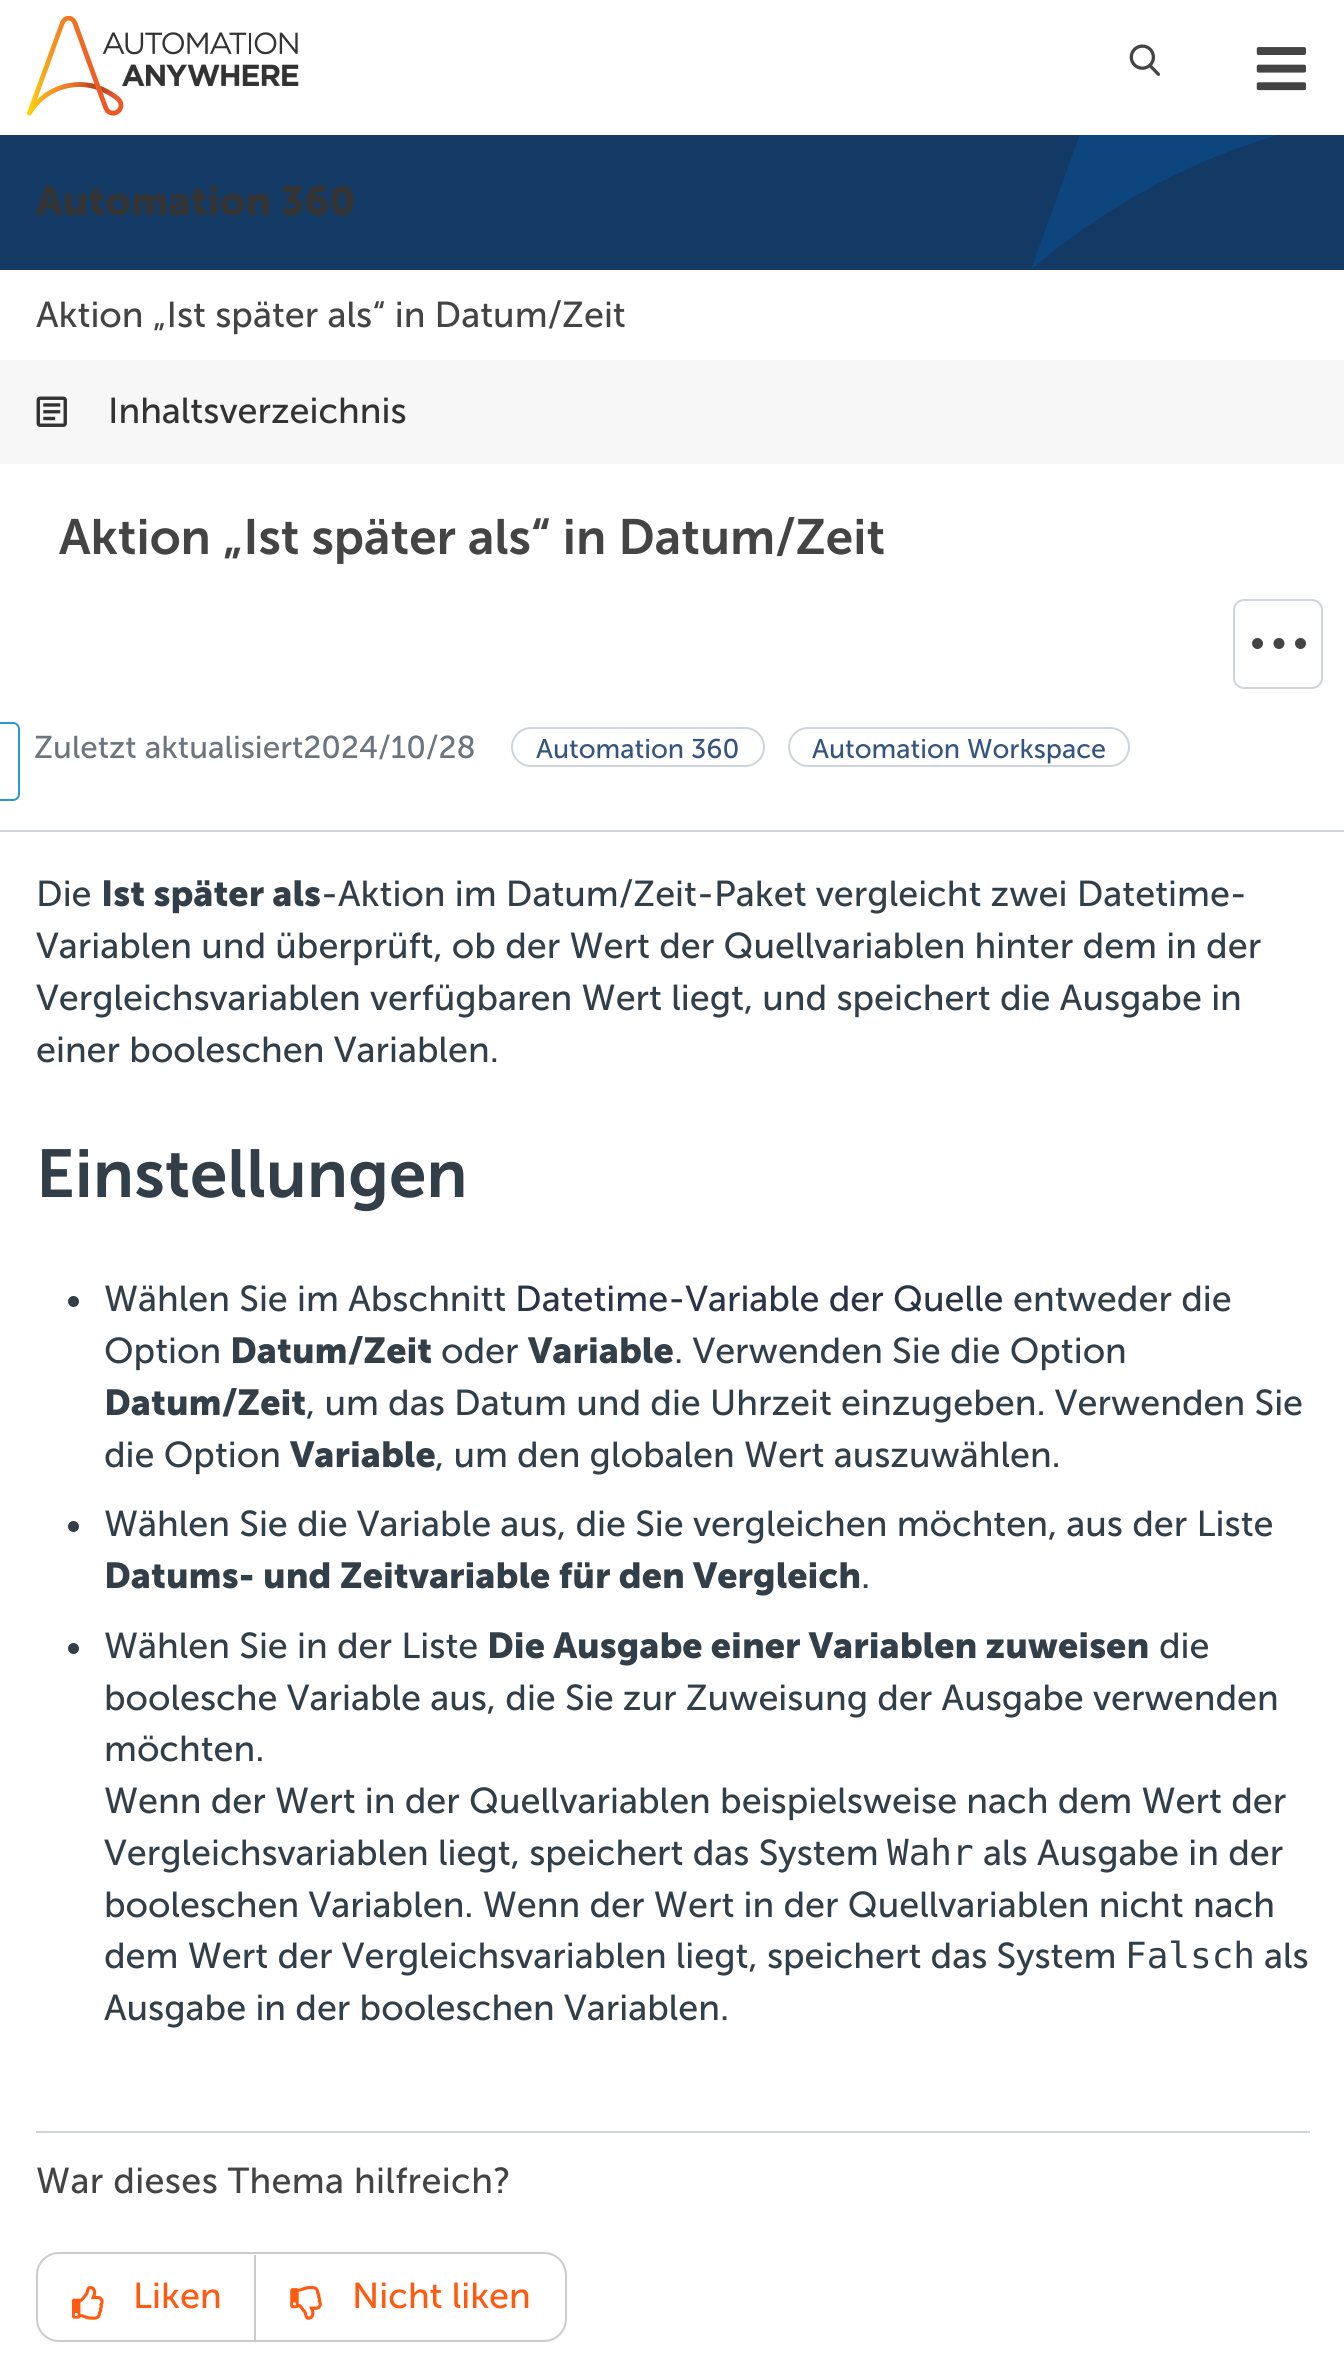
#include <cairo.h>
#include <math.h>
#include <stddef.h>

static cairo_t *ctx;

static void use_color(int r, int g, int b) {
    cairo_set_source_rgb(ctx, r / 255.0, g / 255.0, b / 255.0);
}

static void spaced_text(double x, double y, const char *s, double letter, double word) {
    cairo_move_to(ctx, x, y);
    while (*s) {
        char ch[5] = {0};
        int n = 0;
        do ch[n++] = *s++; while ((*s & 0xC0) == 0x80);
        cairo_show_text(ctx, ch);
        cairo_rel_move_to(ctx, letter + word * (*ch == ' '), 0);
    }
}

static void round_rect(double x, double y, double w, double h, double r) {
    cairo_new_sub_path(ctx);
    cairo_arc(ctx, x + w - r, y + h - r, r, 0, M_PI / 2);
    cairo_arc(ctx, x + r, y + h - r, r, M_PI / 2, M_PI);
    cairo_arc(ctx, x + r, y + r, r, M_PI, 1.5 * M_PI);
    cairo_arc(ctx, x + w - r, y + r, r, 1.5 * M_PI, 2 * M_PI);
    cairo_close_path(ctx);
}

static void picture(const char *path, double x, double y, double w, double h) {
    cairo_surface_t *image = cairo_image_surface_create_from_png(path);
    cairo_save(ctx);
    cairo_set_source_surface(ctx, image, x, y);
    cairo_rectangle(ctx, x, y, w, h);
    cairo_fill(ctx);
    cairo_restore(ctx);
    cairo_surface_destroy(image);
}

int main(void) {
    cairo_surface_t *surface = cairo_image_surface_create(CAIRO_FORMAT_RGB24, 1344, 2375);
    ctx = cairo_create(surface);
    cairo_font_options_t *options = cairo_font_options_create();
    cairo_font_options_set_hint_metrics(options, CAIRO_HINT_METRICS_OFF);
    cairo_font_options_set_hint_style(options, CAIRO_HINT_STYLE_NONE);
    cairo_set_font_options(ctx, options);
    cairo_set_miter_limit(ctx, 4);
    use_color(255, 255, 255);
    cairo_paint(ctx);
    picture("img1.png", 27, 16, 272, 100);
    picture("img2.png", 1129, 44, 31, 32);
    picture("img3.png", 1256, 47, 50, 44);
    round_rect(-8, 723, 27, 77, 6);
    use_color(38, 155, 205);
    cairo_stroke(ctx);
    picture("img4.png", 0, 135, 1344, 135);
    cairo_select_font_face(ctx, "Museo Sans", CAIRO_FONT_SLANT_NORMAL, CAIRO_FONT_WEIGHT_BOLD);
    cairo_set_font_size(ctx, 40.5);
    use_color(51, 51, 51);
    cairo_move_to(ctx, 36, 215);
    cairo_show_text(ctx, "Automation 360");
    cairo_select_font_face(ctx, "Museo Sans", CAIRO_FONT_SLANT_NORMAL, CAIRO_FONT_WEIGHT_NORMAL);
    cairo_set_font_size(ctx, 36);
    use_color(68, 68, 68);
    cairo_move_to(ctx, 36, 327);
    cairo_show_text(ctx, "Aktion „Ist später als“ in Datum/Zeit");
    use_color(247, 247, 247);
    cairo_rectangle(ctx, 0, 360, 1344, 104);
    cairo_fill(ctx);
    picture("img5.png", 36, 396, 31, 31);
    use_color(51, 51, 51);
    cairo_move_to(ctx, 108, 423);
    cairo_show_text(ctx, "Inhaltsverzeichnis");
    use_color(206, 212, 218);
    cairo_rectangle(ctx, 0, 830, 1344, 2);
    cairo_fill(ctx);
    cairo_select_font_face(ctx, "Museo Sans SemiBold", CAIRO_FONT_SLANT_NORMAL, CAIRO_FONT_WEIGHT_NORMAL);
    cairo_set_font_size(ctx, 49.5);
    use_color(68, 68, 68);
    cairo_move_to(ctx, 59, 554);
    cairo_show_text(ctx, "Aktion „Ist später als“ in Datum/Zeit");
    round_rect(1234, 600, 88, 88, 10);
    use_color(206, 212, 218);
    cairo_stroke(ctx);
    use_color(68, 68, 68);
    cairo_arc(ctx, 1257.5, 643.5, 5.5, 0, 2 * M_PI);
    cairo_fill(ctx);
    cairo_arc(ctx, 1279, 643.5, 5.5, 0, 2 * M_PI);
    cairo_fill(ctx);
    cairo_arc(ctx, 1300.5, 643.5, 5.5, 0, 2 * M_PI);
    cairo_fill(ctx);
    cairo_select_font_face(ctx, "Museo Sans", CAIRO_FONT_SLANT_NORMAL, CAIRO_FONT_WEIGHT_NORMAL);
    cairo_set_font_size(ctx, 31.5);
    use_color(108, 117, 125);
    cairo_move_to(ctx, 34, 758);
    cairo_show_text(ctx, "Zuletzt aktualisiert2024/10/28");
    round_rect(512, 728, 252, 38, 19);
    use_color(206, 212, 218);
    cairo_stroke(ctx);
    cairo_set_font_size(ctx, 27);
    use_color(53, 85, 128);
    cairo_move_to(ctx, 536, 758);
    cairo_show_text(ctx, "Automation 360");
    round_rect(789, 728, 340, 38, 19);
    use_color(206, 212, 218);
    cairo_stroke(ctx);
    use_color(53, 85, 128);
    cairo_move_to(ctx, 812, 758);
    cairo_show_text(ctx, "Automation Workspace");
    cairo_set_font_size(ctx, 36);
    use_color(50, 62, 72);
    cairo_move_to(ctx, 36, 906);
    cairo_show_text(ctx, "Die");
    cairo_select_font_face(ctx, "Museo Sans", CAIRO_FONT_SLANT_NORMAL, CAIRO_FONT_WEIGHT_BOLD);
    cairo_move_to(ctx, 101, 906);
    cairo_show_text(ctx, "Ist später als");
    cairo_select_font_face(ctx, "Museo Sans", CAIRO_FONT_SLANT_NORMAL, CAIRO_FONT_WEIGHT_NORMAL);
    cairo_move_to(ctx, 321, 906);
    cairo_show_text(ctx, "-Aktion im Datum/Zeit-Paket vergleicht zwei Datetime-");
    cairo_move_to(ctx, 36, 958);
    cairo_show_text(ctx, "Variablen und überprüft, ob der Wert der Quellvariablen hinter dem in der");
    cairo_move_to(ctx, 36, 1010);
    cairo_show_text(ctx, "Vergleichsvariablen verfügbaren Wert liegt, und speichert die Ausgabe in");
    cairo_move_to(ctx, 36, 1062);
    cairo_show_text(ctx, "einer booleschen Variablen.");
    cairo_select_font_face(ctx, "Museo Sans SemiBold", CAIRO_FONT_SLANT_NORMAL, CAIRO_FONT_WEIGHT_NORMAL);
    cairo_set_font_size(ctx, 67.5);
    cairo_move_to(ctx, 36, 1197);
    cairo_show_text(ctx, "Einstellungen");
    cairo_new_path(ctx);
    cairo_arc(ctx, 73.5, 1301.5, 5.5, 0, 2 * M_PI);
    cairo_fill(ctx);
    cairo_select_font_face(ctx, "Museo Sans", CAIRO_FONT_SLANT_NORMAL, CAIRO_FONT_WEIGHT_NORMAL);
    cairo_set_font_size(ctx, 36);
    cairo_move_to(ctx, 104, 1311);
    cairo_show_text(ctx, "Wählen Sie im Abschnitt");
    use_color(43, 51, 70);
    cairo_move_to(ctx, 515, 1311);
    cairo_show_text(ctx, "Datetime-Variable der Quelle");
    use_color(50, 62, 72);
    cairo_move_to(ctx, 1013, 1311);
    cairo_show_text(ctx, "entweder die");
    cairo_move_to(ctx, 104, 1363);
    cairo_show_text(ctx, "Option");
    cairo_select_font_face(ctx, "Museo Sans", CAIRO_FONT_SLANT_NORMAL, CAIRO_FONT_WEIGHT_BOLD);
    cairo_move_to(ctx, 230, 1363);
    cairo_show_text(ctx, "Datum/Zeit");
    cairo_select_font_face(ctx, "Museo Sans", CAIRO_FONT_SLANT_NORMAL, CAIRO_FONT_WEIGHT_NORMAL);
    cairo_move_to(ctx, 441, 1363);
    cairo_show_text(ctx, "oder");
    cairo_select_font_face(ctx, "Museo Sans", CAIRO_FONT_SLANT_NORMAL, CAIRO_FONT_WEIGHT_BOLD);
    cairo_move_to(ctx, 528, 1363);
    cairo_show_text(ctx, "Variable");
    cairo_select_font_face(ctx, "Museo Sans", CAIRO_FONT_SLANT_NORMAL, CAIRO_FONT_WEIGHT_NORMAL);
    cairo_move_to(ctx, 674, 1363);
    cairo_show_text(ctx, ". Verwenden Sie die Option");
    cairo_select_font_face(ctx, "Museo Sans", CAIRO_FONT_SLANT_NORMAL, CAIRO_FONT_WEIGHT_BOLD);
    cairo_move_to(ctx, 104, 1415);
    cairo_show_text(ctx, "Datum/Zeit");
    cairo_select_font_face(ctx, "Museo Sans", CAIRO_FONT_SLANT_NORMAL, CAIRO_FONT_WEIGHT_NORMAL);
    cairo_move_to(ctx, 306, 1415);
    cairo_show_text(ctx, ", um das Datum und die Uhrzeit einzugeben. Verwenden Sie");
    cairo_move_to(ctx, 104, 1467);
    cairo_show_text(ctx, "die Option");
    cairo_select_font_face(ctx, "Museo Sans", CAIRO_FONT_SLANT_NORMAL, CAIRO_FONT_WEIGHT_BOLD);
    cairo_move_to(ctx, 290, 1467);
    cairo_show_text(ctx, "Variable");
    cairo_select_font_face(ctx, "Museo Sans", CAIRO_FONT_SLANT_NORMAL, CAIRO_FONT_WEIGHT_NORMAL);
    cairo_move_to(ctx, 435, 1467);
    cairo_show_text(ctx, ", um den globalen Wert auszuwählen.");
    cairo_new_path(ctx);
    cairo_arc(ctx, 73.5, 1526.5, 5.5, 0, 2 * M_PI);
    cairo_fill(ctx);
    cairo_move_to(ctx, 104, 1536);
    cairo_show_text(ctx, "Wählen Sie die Variable aus, die Sie vergleichen möchten, aus der Liste");
    cairo_select_font_face(ctx, "Museo Sans", CAIRO_FONT_SLANT_NORMAL, CAIRO_FONT_WEIGHT_BOLD);
    cairo_move_to(ctx, 104, 1588);
    cairo_show_text(ctx, "Datums- und Zeitvariable für den Vergleich");
    cairo_select_font_face(ctx, "Museo Sans", CAIRO_FONT_SLANT_NORMAL, CAIRO_FONT_WEIGHT_NORMAL);
    cairo_move_to(ctx, 861, 1588);
    cairo_show_text(ctx, ".");
    cairo_new_path(ctx);
    cairo_arc(ctx, 73.5, 1648.5, 5.5, 0, 2 * M_PI);
    cairo_fill(ctx);
    cairo_move_to(ctx, 104, 1658);
    cairo_show_text(ctx, "Wählen Sie in der Liste");
    cairo_select_font_face(ctx, "Museo Sans", CAIRO_FONT_SLANT_NORMAL, CAIRO_FONT_WEIGHT_BOLD);
    cairo_move_to(ctx, 487, 1658);
    cairo_show_text(ctx, "Die Ausgabe einer Variablen zuweisen");
    cairo_select_font_face(ctx, "Museo Sans", CAIRO_FONT_SLANT_NORMAL, CAIRO_FONT_WEIGHT_NORMAL);
    cairo_move_to(ctx, 1159, 1658);
    cairo_show_text(ctx, "die");
    cairo_move_to(ctx, 104, 1710);
    cairo_show_text(ctx, "boolesche Variable aus, die Sie zur Zuweisung der Ausgabe verwenden");
    cairo_move_to(ctx, 104, 1761);
    cairo_show_text(ctx, "möchten.");
    cairo_move_to(ctx, 104, 1813);
    cairo_show_text(ctx, "Wenn der Wert in der Quellvariablen beispielsweise nach dem Wert der");
    cairo_move_to(ctx, 104, 1865);
    cairo_show_text(ctx, "Vergleichsvariablen liegt, speichert das System");
    cairo_select_font_face(ctx, "DejaVu Sans Mono", CAIRO_FONT_SLANT_NORMAL, CAIRO_FONT_WEIGHT_NORMAL);
    cairo_move_to(ctx, 887, 1865);
    cairo_show_text(ctx, "Wahr");
    cairo_select_font_face(ctx, "Museo Sans", CAIRO_FONT_SLANT_NORMAL, CAIRO_FONT_WEIGHT_NORMAL);
    cairo_move_to(ctx, 983, 1865);
    cairo_show_text(ctx, "als Ausgabe in der");
    cairo_move_to(ctx, 104, 1917);
    cairo_show_text(ctx, "booleschen Variablen. Wenn der Wert in der Quellvariablen nicht nach");
    cairo_move_to(ctx, 104, 1968);
    cairo_show_text(ctx, "dem Wert der Vergleichsvariablen liegt, speichert das System");
    cairo_select_font_face(ctx, "DejaVu Sans Mono", CAIRO_FONT_SLANT_NORMAL, CAIRO_FONT_WEIGHT_NORMAL);
    cairo_move_to(ctx, 1125, 1968);
    cairo_show_text(ctx, "Falsch");
    cairo_select_font_face(ctx, "Museo Sans", CAIRO_FONT_SLANT_NORMAL, CAIRO_FONT_WEIGHT_NORMAL);
    cairo_move_to(ctx, 1264, 1968);
    cairo_show_text(ctx, "als");
    cairo_move_to(ctx, 104, 2020);
    cairo_show_text(ctx, "Ausgabe in der booleschen Variablen.");
    use_color(206, 212, 218);
    cairo_rectangle(ctx, 36, 2131, 1274, 2);
    cairo_fill(ctx);
    use_color(68, 68, 68);
    spaced_text(36, 2193, "War dieses Thema hilfreich?", 0.35, 0);
    round_rect(37, 2253, 529, 88, 22);
    use_color(204, 204, 204);
    cairo_stroke(ctx);
    cairo_rectangle(ctx, 254, 2255, 2, 85);
    cairo_fill(ctx);
    picture("img6.png", 72, 2286, 32, 34);
    use_color(255, 90, 16);
    cairo_move_to(ctx, 133, 2308);
    cairo_show_text(ctx, "Liken");
    picture("img7.png", 290, 2286, 32, 34);
    cairo_move_to(ctx, 352, 2308);
    cairo_show_text(ctx, "Nicht liken");
    cairo_surface_write_to_png(surface, "result.png");
    cairo_font_options_destroy(options);
    cairo_destroy(ctx);
    cairo_surface_destroy(surface);
    return 0;
}
